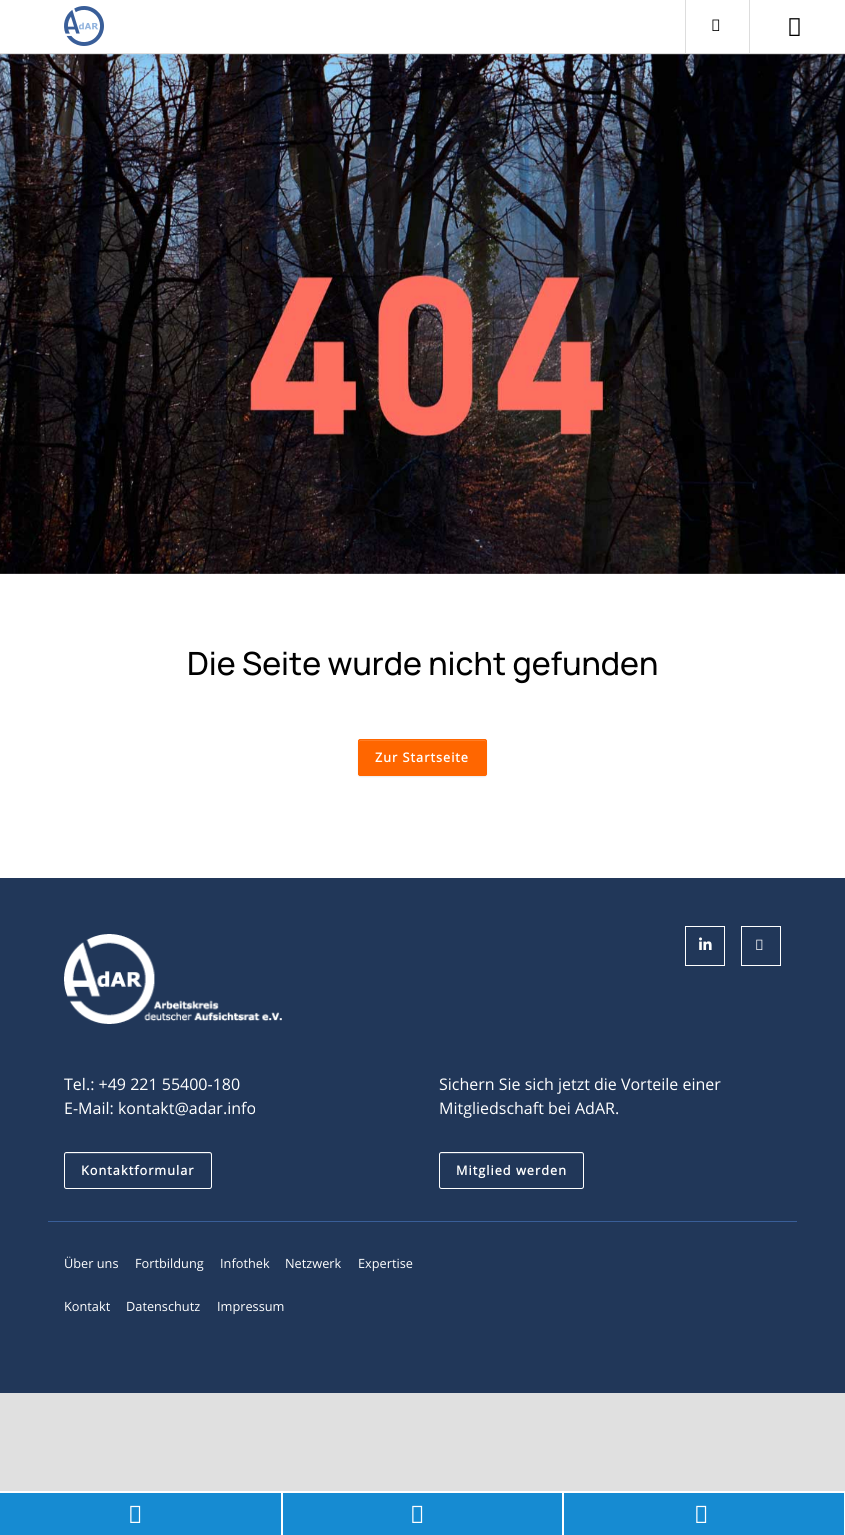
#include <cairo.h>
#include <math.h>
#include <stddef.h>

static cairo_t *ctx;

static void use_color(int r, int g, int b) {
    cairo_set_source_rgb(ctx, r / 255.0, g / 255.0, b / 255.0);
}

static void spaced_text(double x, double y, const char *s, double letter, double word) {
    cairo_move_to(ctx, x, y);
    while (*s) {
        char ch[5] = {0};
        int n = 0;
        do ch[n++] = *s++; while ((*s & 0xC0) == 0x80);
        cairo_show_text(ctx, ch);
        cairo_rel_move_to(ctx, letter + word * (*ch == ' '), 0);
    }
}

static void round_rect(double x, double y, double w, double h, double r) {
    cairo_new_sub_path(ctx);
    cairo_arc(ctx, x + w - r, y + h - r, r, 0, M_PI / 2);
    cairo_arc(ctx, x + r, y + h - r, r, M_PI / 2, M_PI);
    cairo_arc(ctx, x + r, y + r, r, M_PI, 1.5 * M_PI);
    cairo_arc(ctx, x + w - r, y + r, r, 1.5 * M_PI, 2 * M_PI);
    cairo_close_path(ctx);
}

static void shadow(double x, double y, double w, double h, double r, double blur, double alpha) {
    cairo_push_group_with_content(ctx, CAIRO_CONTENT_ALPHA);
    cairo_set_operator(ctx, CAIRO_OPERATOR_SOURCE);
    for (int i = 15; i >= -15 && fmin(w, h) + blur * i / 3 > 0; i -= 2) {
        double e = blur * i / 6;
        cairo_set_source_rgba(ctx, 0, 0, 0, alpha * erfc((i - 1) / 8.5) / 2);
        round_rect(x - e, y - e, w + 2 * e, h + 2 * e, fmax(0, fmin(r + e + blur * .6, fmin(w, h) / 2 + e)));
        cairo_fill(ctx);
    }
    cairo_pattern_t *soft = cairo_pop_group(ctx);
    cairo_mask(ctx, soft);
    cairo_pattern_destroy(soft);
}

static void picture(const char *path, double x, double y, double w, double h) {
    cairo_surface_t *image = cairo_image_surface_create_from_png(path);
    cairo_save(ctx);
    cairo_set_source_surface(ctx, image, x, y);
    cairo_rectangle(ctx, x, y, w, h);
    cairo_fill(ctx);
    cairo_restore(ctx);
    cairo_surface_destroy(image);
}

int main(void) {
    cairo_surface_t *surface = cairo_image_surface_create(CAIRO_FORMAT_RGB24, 845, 1535);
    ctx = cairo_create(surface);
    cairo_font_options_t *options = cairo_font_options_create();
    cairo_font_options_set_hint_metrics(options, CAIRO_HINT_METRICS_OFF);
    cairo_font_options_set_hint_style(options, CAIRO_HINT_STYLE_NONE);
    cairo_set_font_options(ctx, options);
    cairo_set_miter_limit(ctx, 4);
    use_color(224, 224, 224);
    cairo_paint(ctx);
    use_color(255, 255, 255);
    cairo_rectangle(ctx, 0, 54, 845, 824);
    cairo_fill(ctx);
    picture("img4.png", 0, 54, 845, 520);
    use_color(0, 0, 0);
    shadow(5, 5, 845, 54, 0, 7.5, 0.1);
    use_color(255, 255, 255);
    cairo_rectangle(ctx, 0, 0, 845, 53);
    cairo_fill(ctx);
    use_color(224, 224, 224);
    cairo_rectangle(ctx, 0, 53, 845, 1);
    cairo_fill(ctx);
    picture("img1.png", 64, 6, 40, 40);
    use_color(221, 221, 221);
    cairo_rectangle(ctx, 685, 0, 1, 53);
    cairo_fill(ctx);
    picture("img2.png", 712, 19, 8, 12);
    cairo_rectangle(ctx, 749, 0, 1, 53);
    cairo_fill(ctx);
    picture("img3.png", 789, 18, 11, 18);
    cairo_select_font_face(ctx, "Manrope Medium", CAIRO_FONT_SLANT_NORMAL, CAIRO_FONT_WEIGHT_NORMAL);
    cairo_set_font_size(ctx, 32);
    use_color(0, 0, 0);
    cairo_move_to(ctx, 187, 675);
    cairo_show_text(ctx, "Die Seite wurde nicht gefunden");
    use_color(0, 0, 0);
    shadow(358, 740, 129, 37, 2.5, 0.5, 0.07);
    use_color(255, 102, 0);
    round_rect(358, 739, 129, 37, 2.5);
    cairo_fill(ctx);
    use_color(255, 125, 38);
    cairo_new_path(ctx);
    cairo_move_to(ctx, 360, 741);
    cairo_line_to(ctx, 485, 741);
    cairo_line_to(ctx, 486, 742);
    cairo_curve_to(ctx, 486, 741, 486, 740, 484, 740);
    cairo_line_to(ctx, 360, 740);
    cairo_curve_to(ctx, 359, 740, 359, 741, 359, 742);
    cairo_close_path(ctx);
    cairo_fill(ctx);
    round_rect(358.5, 739.5, 128, 36, 2);
    use_color(255, 102, 0);
    cairo_set_line_width(ctx, 1);
    cairo_stroke(ctx);
    cairo_select_font_face(ctx, "Open Sans", CAIRO_FONT_SLANT_NORMAL, CAIRO_FONT_WEIGHT_BOLD);
    cairo_set_font_size(ctx, 12.75);
    use_color(255, 255, 255);
    spaced_text(375, 762, "Zur Startseite", 1, 0);
    cairo_rectangle(ctx, 0, 1491, 845, 44);
    cairo_fill(ctx);
    use_color(22, 139, 210);
    cairo_rectangle(ctx, 0, 1493, 281, 42);
    cairo_fill(ctx);
    picture("img5.png", 130, 1505, 11, 18);
    cairo_rectangle(ctx, 283, 1493, 279, 42);
    cairo_fill(ctx);
    picture("img5.png", 412, 1505, 11, 18);
    cairo_rectangle(ctx, 564, 1493, 280, 42);
    cairo_fill(ctx);
    picture("img5.png", 696, 1505, 11, 18);
    use_color(33, 55, 89);
    cairo_rectangle(ctx, 0, 878, 845, 515);
    cairo_fill(ctx);
    picture("img6.png", 64, 934, 218, 90);
    cairo_rectangle(ctx, 685.5, 926.5, 39, 39);
    use_color(255, 255, 255);
    cairo_stroke(ctx);
    picture("img7.png", 699, 937, 13, 13);
    cairo_rectangle(ctx, 741.5, 926.5, 39, 39);
    cairo_stroke(ctx);
    picture("img8.png", 756, 939, 7, 11);
    cairo_select_font_face(ctx, "Open Sans", CAIRO_FONT_SLANT_NORMAL, CAIRO_FONT_WEIGHT_NORMAL);
    cairo_set_font_size(ctx, 16);
    cairo_move_to(ctx, 64, 1090);
    cairo_show_text(ctx, "Tel.: +49 221 55400-180");
    cairo_move_to(ctx, 64, 1114);
    cairo_show_text(ctx, "E-Mail: kontakt@adar.info");
    use_color(66, 85, 114);
    cairo_new_path(ctx);
    cairo_move_to(ctx, 66, 1154);
    cairo_line_to(ctx, 210, 1154);
    cairo_line_to(ctx, 211, 1155);
    cairo_curve_to(ctx, 211, 1154, 211, 1153, 210, 1153);
    cairo_line_to(ctx, 66, 1153);
    cairo_curve_to(ctx, 65, 1153, 65, 1154, 65, 1155);
    cairo_close_path(ctx);
    cairo_fill(ctx);
    round_rect(64.5, 1152.5, 147, 36, 2);
    use_color(255, 255, 255);
    cairo_stroke(ctx);
    cairo_select_font_face(ctx, "Open Sans", CAIRO_FONT_SLANT_NORMAL, CAIRO_FONT_WEIGHT_BOLD);
    cairo_set_font_size(ctx, 12.75);
    spaced_text(81, 1175, "Kontaktformular", 1, 0);
    cairo_select_font_face(ctx, "Open Sans", CAIRO_FONT_SLANT_NORMAL, CAIRO_FONT_WEIGHT_NORMAL);
    cairo_set_font_size(ctx, 16);
    cairo_move_to(ctx, 439, 1090);
    cairo_show_text(ctx, "Sichern Sie sich jetzt die Vorteile einer");
    cairo_move_to(ctx, 439, 1114);
    cairo_show_text(ctx, "Mitgliedschaft bei AdAR.");
    use_color(66, 85, 114);
    cairo_new_path(ctx);
    cairo_move_to(ctx, 441, 1154);
    cairo_line_to(ctx, 582, 1154);
    cairo_line_to(ctx, 583, 1155);
    cairo_curve_to(ctx, 583, 1154, 583, 1153, 582, 1153);
    cairo_line_to(ctx, 442, 1153);
    cairo_curve_to(ctx, 440, 1153, 440, 1154, 440, 1155);
    cairo_close_path(ctx);
    cairo_fill(ctx);
    round_rect(439.5, 1152.5, 144, 36, 2);
    use_color(255, 255, 255);
    cairo_stroke(ctx);
    cairo_select_font_face(ctx, "Open Sans", CAIRO_FONT_SLANT_NORMAL, CAIRO_FONT_WEIGHT_BOLD);
    cairo_set_font_size(ctx, 12.75);
    spaced_text(456, 1175, "Mitglied werden", 1, 0);
    use_color(57, 94, 153);
    cairo_rectangle(ctx, 48, 1221, 749, 1);
    cairo_fill(ctx);
    cairo_select_font_face(ctx, "Open Sans", CAIRO_FONT_SLANT_NORMAL, CAIRO_FONT_WEIGHT_NORMAL);
    use_color(255, 255, 255);
    cairo_move_to(ctx, 64, 1268);
    cairo_show_text(ctx, "Über uns");
    cairo_move_to(ctx, 135, 1268);
    cairo_show_text(ctx, "Fortbildung");
    cairo_move_to(ctx, 220, 1268);
    cairo_show_text(ctx, "Infothek");
    cairo_move_to(ctx, 285, 1268);
    cairo_show_text(ctx, "Netzwerk");
    cairo_move_to(ctx, 358, 1268);
    cairo_show_text(ctx, "Expertise");
    cairo_move_to(ctx, 64, 1311);
    cairo_show_text(ctx, "Kontakt");
    cairo_move_to(ctx, 126, 1311);
    cairo_show_text(ctx, "Datenschutz");
    cairo_move_to(ctx, 217, 1311);
    cairo_show_text(ctx, "Impressum");
    cairo_surface_write_to_png(surface, "result.png");
    cairo_font_options_destroy(options);
    cairo_destroy(ctx);
    cairo_surface_destroy(surface);
    return 0;
}
